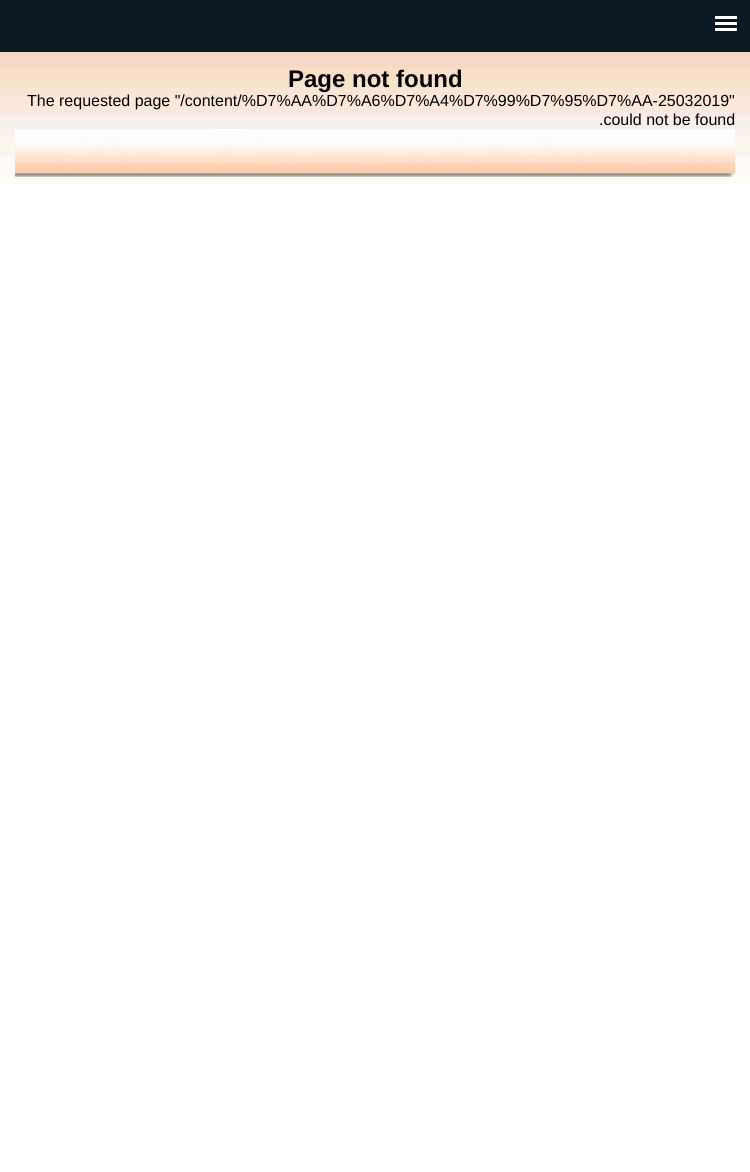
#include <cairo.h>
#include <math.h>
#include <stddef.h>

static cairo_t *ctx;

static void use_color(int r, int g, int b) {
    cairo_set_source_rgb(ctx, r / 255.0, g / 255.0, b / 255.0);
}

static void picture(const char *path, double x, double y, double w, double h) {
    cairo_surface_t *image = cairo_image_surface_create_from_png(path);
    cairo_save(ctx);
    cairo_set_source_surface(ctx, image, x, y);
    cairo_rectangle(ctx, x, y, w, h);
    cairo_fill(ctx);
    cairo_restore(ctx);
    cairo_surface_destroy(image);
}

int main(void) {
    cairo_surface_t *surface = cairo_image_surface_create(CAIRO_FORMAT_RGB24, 750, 1172);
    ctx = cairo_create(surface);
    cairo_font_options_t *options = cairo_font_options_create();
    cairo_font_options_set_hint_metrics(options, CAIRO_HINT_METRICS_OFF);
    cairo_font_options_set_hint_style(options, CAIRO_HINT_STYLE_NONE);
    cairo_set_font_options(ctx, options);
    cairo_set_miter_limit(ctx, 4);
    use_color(255, 255, 255);
    cairo_paint(ctx);
    picture("img1.png", 0, 52, 750, 134);
    use_color(12, 25, 35);
    cairo_rectangle(ctx, 0, 0, 750, 52);
    cairo_fill(ctx);
    use_color(255, 255, 255);
    cairo_rectangle(ctx, 715, 16, 22, 3);
    cairo_fill(ctx);
    cairo_rectangle(ctx, 715, 22, 22, 3);
    cairo_fill(ctx);
    cairo_rectangle(ctx, 715, 28, 22, 3);
    cairo_fill(ctx);
    cairo_select_font_face(ctx, "Liberation Sans", CAIRO_FONT_SLANT_NORMAL, CAIRO_FONT_WEIGHT_BOLD);
    cairo_set_font_size(ctx, 24);
    use_color(0, 0, 0);
    cairo_move_to(ctx, 288, 87);
    cairo_show_text(ctx, "Page not found");
    cairo_select_font_face(ctx, "Liberation Sans", CAIRO_FONT_SLANT_NORMAL, CAIRO_FONT_WEIGHT_NORMAL);
    cairo_set_font_size(ctx, 16);
    cairo_move_to(ctx, 27, 106);
    cairo_show_text(ctx, "The requested page \"/content/%D7%AA%D7%A6%D7%A4%D7%99%D7%95%D7%AA-25032019\"");
    cairo_move_to(ctx, 599, 125);
    cairo_show_text(ctx, ".could not be found");
    picture("img2.png", 15, 129, 720, 48);
    cairo_surface_write_to_png(surface, "result.png");
    cairo_font_options_destroy(options);
    cairo_destroy(ctx);
    cairo_surface_destroy(surface);
    return 0;
}
